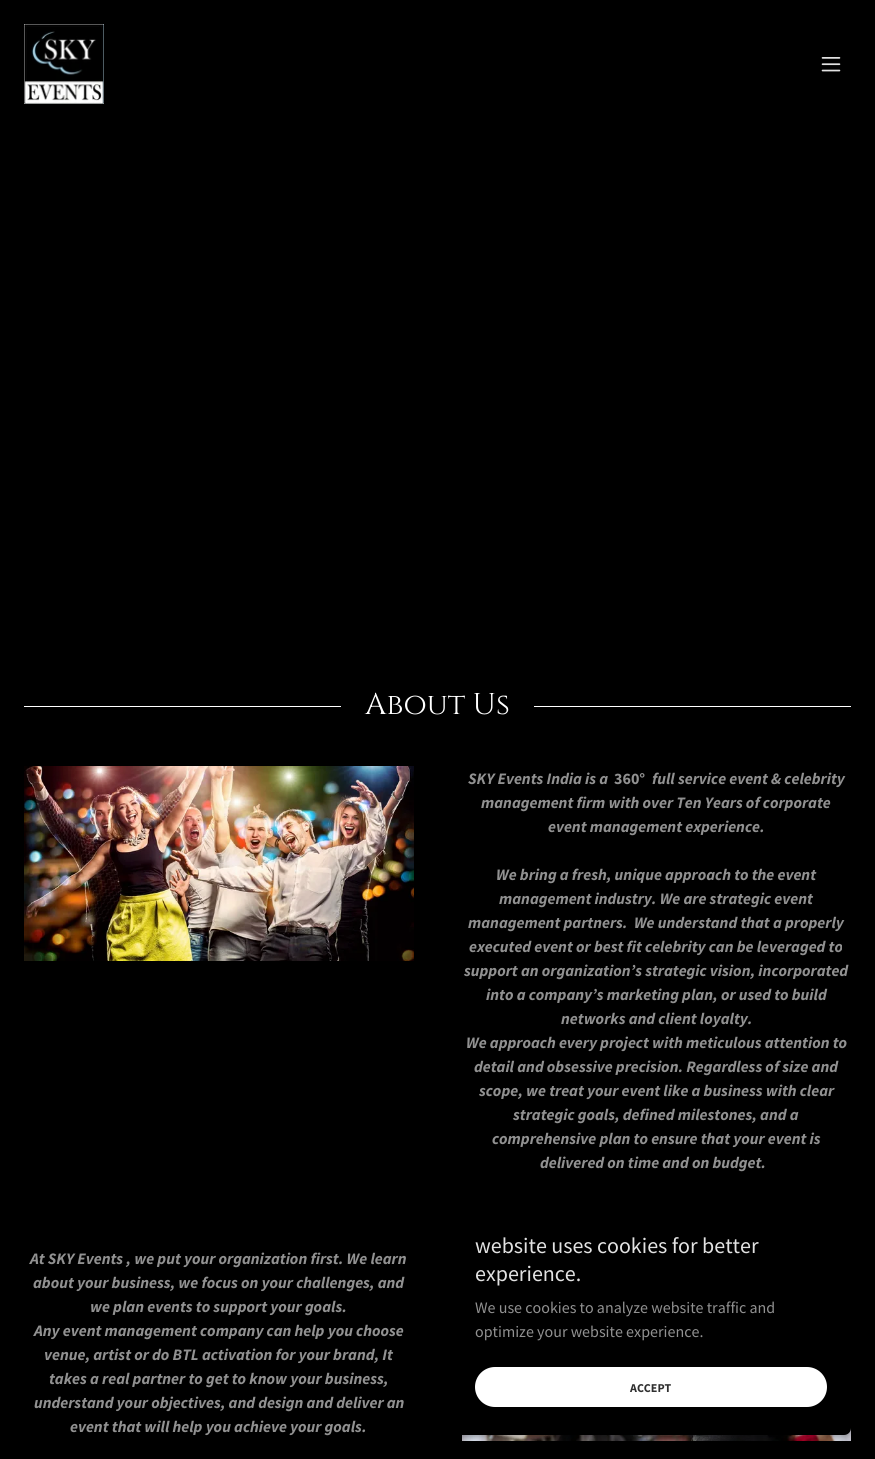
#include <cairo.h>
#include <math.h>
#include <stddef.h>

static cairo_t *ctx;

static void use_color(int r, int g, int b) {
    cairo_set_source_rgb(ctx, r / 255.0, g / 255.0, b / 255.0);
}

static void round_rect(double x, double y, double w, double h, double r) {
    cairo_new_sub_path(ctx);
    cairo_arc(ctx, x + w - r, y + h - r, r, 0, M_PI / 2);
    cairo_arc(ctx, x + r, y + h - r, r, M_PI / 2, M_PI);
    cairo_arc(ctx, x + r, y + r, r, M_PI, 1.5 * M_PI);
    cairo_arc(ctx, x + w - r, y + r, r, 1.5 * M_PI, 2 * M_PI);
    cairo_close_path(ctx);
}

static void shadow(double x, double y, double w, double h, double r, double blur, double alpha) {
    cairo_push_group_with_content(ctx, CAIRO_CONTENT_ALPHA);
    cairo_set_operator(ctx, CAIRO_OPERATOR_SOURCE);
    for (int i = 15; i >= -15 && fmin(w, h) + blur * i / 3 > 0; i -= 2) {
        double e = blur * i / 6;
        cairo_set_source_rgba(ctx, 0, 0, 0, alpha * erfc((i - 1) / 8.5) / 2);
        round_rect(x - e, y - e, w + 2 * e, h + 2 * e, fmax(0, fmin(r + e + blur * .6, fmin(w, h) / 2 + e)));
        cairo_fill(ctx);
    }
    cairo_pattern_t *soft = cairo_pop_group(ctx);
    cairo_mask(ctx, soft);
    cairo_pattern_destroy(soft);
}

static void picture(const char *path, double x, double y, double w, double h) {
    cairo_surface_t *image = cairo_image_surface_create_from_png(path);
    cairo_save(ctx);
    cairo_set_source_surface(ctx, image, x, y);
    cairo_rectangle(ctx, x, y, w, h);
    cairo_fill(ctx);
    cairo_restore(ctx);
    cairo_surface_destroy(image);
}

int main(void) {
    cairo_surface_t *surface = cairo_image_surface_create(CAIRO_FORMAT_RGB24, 875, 1459);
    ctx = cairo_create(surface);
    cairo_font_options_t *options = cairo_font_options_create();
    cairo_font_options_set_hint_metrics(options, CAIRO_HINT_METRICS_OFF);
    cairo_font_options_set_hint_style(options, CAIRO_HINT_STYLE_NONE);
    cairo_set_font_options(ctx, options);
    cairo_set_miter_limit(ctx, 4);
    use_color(0, 0, 0);
    cairo_paint(ctx);
    picture("img1.png", 24, 24, 80, 80);
    picture("img2.png", 821, 57, 20, 15);
    use_color(255, 255, 255);
    cairo_rectangle(ctx, 24, 706, 317, 1);
    cairo_fill(ctx);
    cairo_select_font_face(ctx, "Cinzel", CAIRO_FONT_SLANT_NORMAL, CAIRO_FONT_WEIGHT_NORMAL);
    cairo_set_font_size(ctx, 30);
    cairo_move_to(ctx, 365, 714);
    cairo_show_text(ctx, "About Us");
    cairo_rectangle(ctx, 534, 706, 317, 1);
    cairo_fill(ctx);
    picture("img3.png", 24, 766, 390, 195);
    cairo_select_font_face(ctx, "Source Sans Pro", CAIRO_FONT_SLANT_ITALIC, CAIRO_FONT_WEIGHT_BOLD);
    cairo_set_font_size(ctx, 16);
    use_color(145, 145, 145);
    cairo_move_to(ctx, 468, 784);
    cairo_show_text(ctx, "SKY Events India is a");
    cairo_select_font_face(ctx, "Source Sans Pro", CAIRO_FONT_SLANT_NORMAL, CAIRO_FONT_WEIGHT_BOLD);
    cairo_move_to(ctx, 614, 784);
    cairo_show_text(ctx, "360°");
    cairo_select_font_face(ctx, "Source Sans Pro", CAIRO_FONT_SLANT_ITALIC, CAIRO_FONT_WEIGHT_BOLD);
    cairo_move_to(ctx, 652, 784);
    cairo_show_text(ctx, "full service event & celebrity");
    cairo_move_to(ctx, 481, 808);
    cairo_show_text(ctx, "management firm with over Ten Years of corporate");
    cairo_move_to(ctx, 548, 832);
    cairo_show_text(ctx, "event management experience.");
    cairo_move_to(ctx, 496, 880);
    cairo_show_text(ctx, "We bring a fresh, unique approach to the event");
    cairo_move_to(ctx, 499, 904);
    cairo_show_text(ctx, "management industry. We are strategic event");
    cairo_move_to(ctx, 468, 928);
    cairo_show_text(ctx, "management partners.  We understand that a properly");
    cairo_move_to(ctx, 469, 952);
    cairo_show_text(ctx, "executed event or best fit celebrity can be leveraged to");
    cairo_move_to(ctx, 464, 976);
    cairo_show_text(ctx, "support an organization’s strategic vision, incorporated");
    cairo_move_to(ctx, 486, 1000);
    cairo_show_text(ctx, "into a company’s marketing plan, or used to build");
    cairo_move_to(ctx, 561, 1024);
    cairo_show_text(ctx, "networks and client loyalty.");
    cairo_move_to(ctx, 466, 1048);
    cairo_show_text(ctx, "We approach every project with meticulous attention to");
    cairo_move_to(ctx, 474, 1072);
    cairo_show_text(ctx, "detail and obsessive precision. Regardless of size and");
    cairo_move_to(ctx, 479, 1096);
    cairo_show_text(ctx, "scope, we treat your event like a business with clear");
    cairo_move_to(ctx, 513, 1120);
    cairo_show_text(ctx, "strategic goals, defined milestones, and a");
    cairo_move_to(ctx, 492, 1144);
    cairo_show_text(ctx, "comprehensive plan to ensure that your event is");
    cairo_move_to(ctx, 540, 1168);
    cairo_show_text(ctx, "delivered on time and on budget.");
    cairo_move_to(ctx, 30, 1264);
    cairo_show_text(ctx, "At SKY Events , we put your organization first. We learn");
    cairo_move_to(ctx, 33, 1288);
    cairo_show_text(ctx, "about your business, we focus on your challenges, and");
    cairo_move_to(ctx, 90, 1312);
    cairo_show_text(ctx, "we plan events to support your goals.");
    cairo_move_to(ctx, 34, 1336);
    cairo_show_text(ctx, "Any event management company can help you choose");
    cairo_move_to(ctx, 44, 1360);
    cairo_show_text(ctx, "venue, artist or do BTL activation for your brand, It");
    cairo_move_to(ctx, 49, 1384);
    cairo_show_text(ctx, "takes a real partner to get to know your business,");
    cairo_move_to(ctx, 34, 1408);
    cairo_show_text(ctx, "understand your objectives, and design and deliver an");
    cairo_move_to(ctx, 70, 1432);
    cairo_show_text(ctx, "event that will help you achieve your goals.");
    picture("img4.png", 462, 1428, 389, 13);
    use_color(0, 0, 0);
    shadow(451, 1210, 400, 227, 7, 3, 0.3);
    use_color(0, 0, 0);
    round_rect(451, 1208, 400, 227, 7);
    cairo_fill(ctx);
    cairo_select_font_face(ctx, "Source Sans Pro", CAIRO_FONT_SLANT_NORMAL, CAIRO_FONT_WEIGHT_NORMAL);
    cairo_set_font_size(ctx, 22);
    use_color(226, 226, 226);
    cairo_move_to(ctx, 475, 1253);
    cairo_show_text(ctx, "website uses cookies for better");
    cairo_move_to(ctx, 475, 1281);
    cairo_show_text(ctx, "experience.");
    cairo_set_font_size(ctx, 16);
    use_color(145, 145, 145);
    cairo_move_to(ctx, 475, 1313);
    cairo_show_text(ctx, "We use cookies to analyze website traffic and");
    cairo_move_to(ctx, 475, 1337);
    cairo_show_text(ctx, "optimize your website experience.");
    use_color(255, 255, 255);
    round_rect(475, 1367, 352, 40, 20);
    cairo_fill(ctx);
    cairo_select_font_face(ctx, "Source Sans Pro", CAIRO_FONT_SLANT_NORMAL, CAIRO_FONT_WEIGHT_BOLD);
    cairo_set_font_size(ctx, 12);
    use_color(48, 48, 48);
    cairo_move_to(ctx, 630, 1392);
    cairo_show_text(ctx, "ACCEPT");
    cairo_surface_write_to_png(surface, "result.png");
    cairo_font_options_destroy(options);
    cairo_destroy(ctx);
    cairo_surface_destroy(surface);
    return 0;
}
